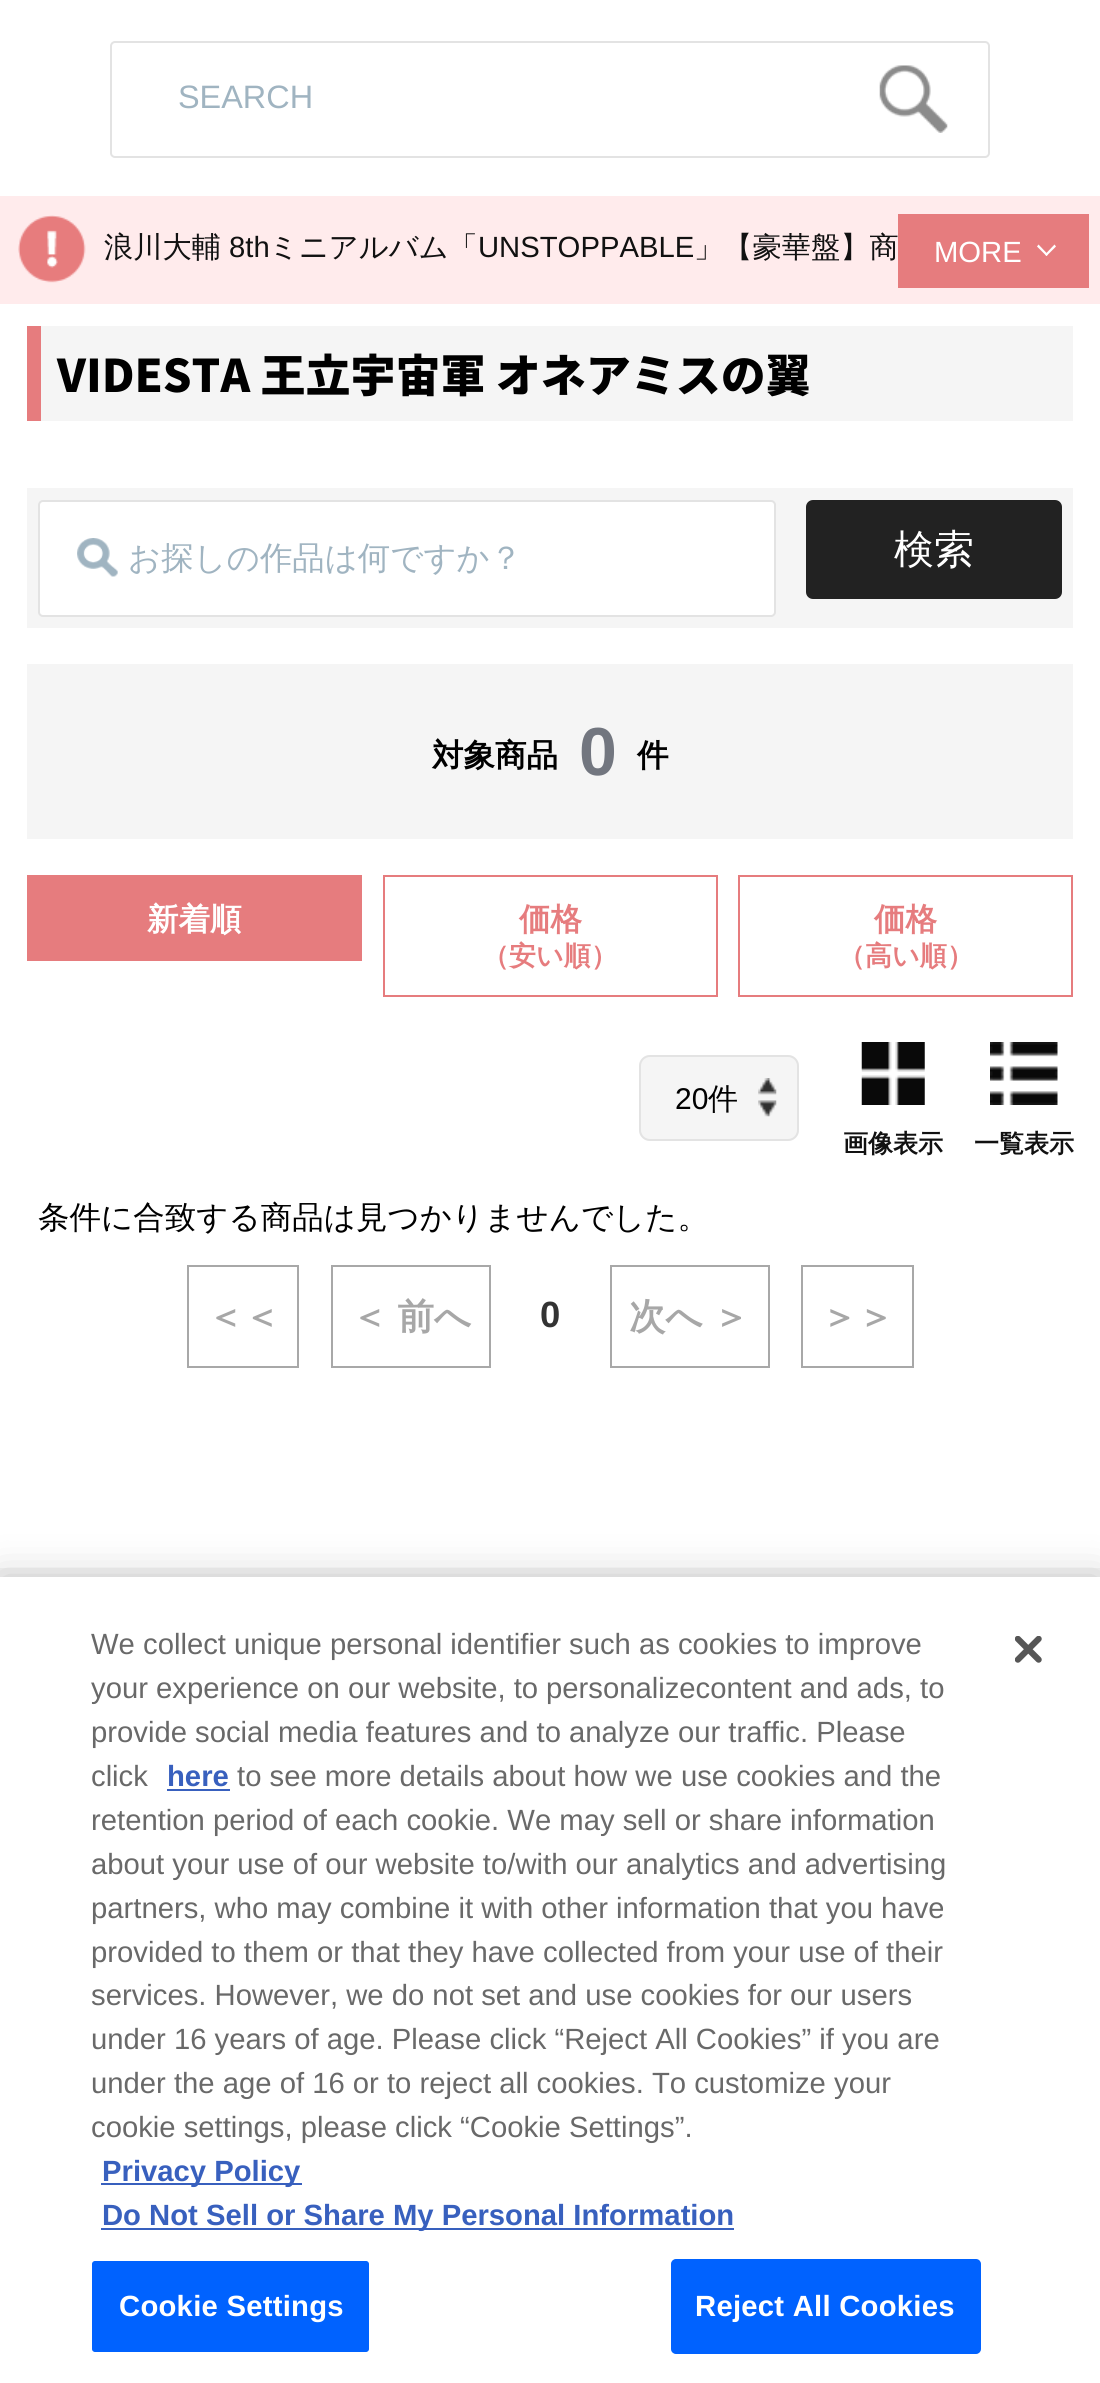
#include <cairo.h>
#include <math.h>
#include <stddef.h>

static cairo_t *ctx;

static void use_color(int r, int g, int b) {
    cairo_set_source_rgb(ctx, r / 255.0, g / 255.0, b / 255.0);
}

static void spaced_text(double x, double y, const char *s, double letter, double word) {
    cairo_move_to(ctx, x, y);
    while (*s) {
        char ch[5] = {0};
        int n = 0;
        do ch[n++] = *s++; while ((*s & 0xC0) == 0x80);
        cairo_show_text(ctx, ch);
        cairo_rel_move_to(ctx, letter + word * (*ch == ' '), 0);
    }
}

static void round_rect(double x, double y, double w, double h, double r) {
    cairo_new_sub_path(ctx);
    cairo_arc(ctx, x + w - r, y + h - r, r, 0, M_PI / 2);
    cairo_arc(ctx, x + r, y + h - r, r, M_PI / 2, M_PI);
    cairo_arc(ctx, x + r, y + r, r, M_PI, 1.5 * M_PI);
    cairo_arc(ctx, x + w - r, y + r, r, 1.5 * M_PI, 2 * M_PI);
    cairo_close_path(ctx);
}

static void shadow(double x, double y, double w, double h, double r, double blur, double alpha) {
    cairo_push_group_with_content(ctx, CAIRO_CONTENT_ALPHA);
    cairo_set_operator(ctx, CAIRO_OPERATOR_SOURCE);
    for (int i = 15; i >= -15 && fmin(w, h) + blur * i / 3 > 0; i -= 2) {
        double e = blur * i / 6;
        cairo_set_source_rgba(ctx, 0, 0, 0, alpha * erfc((i - 1) / 8.5) / 2);
        round_rect(x - e, y - e, w + 2 * e, h + 2 * e, fmax(0, fmin(r + e + blur * .6, fmin(w, h) / 2 + e)));
        cairo_fill(ctx);
    }
    cairo_pattern_t *soft = cairo_pop_group(ctx);
    cairo_mask(ctx, soft);
    cairo_pattern_destroy(soft);
}

static void picture(const char *path, double x, double y, double w, double h) {
    cairo_surface_t *image = cairo_image_surface_create_from_png(path);
    cairo_save(ctx);
    cairo_set_source_surface(ctx, image, x, y);
    cairo_rectangle(ctx, x, y, w, h);
    cairo_fill(ctx);
    cairo_restore(ctx);
    cairo_surface_destroy(image);
}

int main(void) {
    cairo_surface_t *surface = cairo_image_surface_create(CAIRO_FORMAT_RGB24, 1100, 2383);
    ctx = cairo_create(surface);
    cairo_font_options_t *options = cairo_font_options_create();
    cairo_font_options_set_hint_metrics(options, CAIRO_HINT_METRICS_OFF);
    cairo_font_options_set_hint_style(options, CAIRO_HINT_STYLE_NONE);
    cairo_set_font_options(ctx, options);
    cairo_set_miter_limit(ctx, 4);
    use_color(255, 255, 255);
    cairo_paint(ctx);
    round_rect(111, 42, 878, 115, 4);
    use_color(227, 227, 227);
    cairo_stroke(ctx);
    cairo_select_font_face(ctx, "Liberation Sans", CAIRO_FONT_SLANT_NORMAL, CAIRO_FONT_WEIGHT_NORMAL);
    cairo_set_font_size(ctx, 32.4);
    use_color(160, 180, 193);
    cairo_move_to(ctx, 178, 108);
    cairo_show_text(ctx, "SEARCH");
    picture("img1.png", 879, 65, 69, 68);
    use_color(255, 235, 236);
    cairo_rectangle(ctx, 0, 196, 1100, 108);
    cairo_fill(ctx);
    picture("img2.png", 18, 215, 68, 68);
    cairo_select_font_face(ctx, "WenQuanYi Zen Hei Medium", CAIRO_FONT_SLANT_NORMAL, CAIRO_FONT_WEIGHT_NORMAL);
    cairo_set_font_size(ctx, 29.25);
    use_color(17, 17, 17);
    cairo_move_to(ctx, 104, 257);
    cairo_show_text(ctx, "浪川大輔");
    cairo_select_font_face(ctx, "Liberation Sans", CAIRO_FONT_SLANT_NORMAL, CAIRO_FONT_WEIGHT_NORMAL);
    cairo_move_to(ctx, 229, 257);
    cairo_show_text(ctx, "8th");
    cairo_select_font_face(ctx, "WenQuanYi Zen Hei Medium", CAIRO_FONT_SLANT_NORMAL, CAIRO_FONT_WEIGHT_NORMAL);
    cairo_move_to(ctx, 269, 257);
    cairo_show_text(ctx, "ミニアルバム「");
    cairo_select_font_face(ctx, "Liberation Sans", CAIRO_FONT_SLANT_NORMAL, CAIRO_FONT_WEIGHT_NORMAL);
    cairo_move_to(ctx, 478, 257);
    cairo_show_text(ctx, "UNSTOPPABLE");
    cairo_select_font_face(ctx, "WenQuanYi Zen Hei Medium", CAIRO_FONT_SLANT_NORMAL, CAIRO_FONT_WEIGHT_NORMAL);
    cairo_move_to(ctx, 694, 257);
    cairo_show_text(ctx, "」【豪華盤】商");
    use_color(230, 124, 126);
    cairo_rectangle(ctx, 898, 214, 191, 74);
    cairo_fill(ctx);
    cairo_select_font_face(ctx, "Liberation Sans", CAIRO_FONT_SLANT_NORMAL, CAIRO_FONT_WEIGHT_NORMAL);
    use_color(255, 255, 255);
    cairo_move_to(ctx, 934, 262);
    cairo_show_text(ctx, "MORE");
    cairo_new_path(ctx);
    cairo_move_to(ctx, 1045, 254.5);
    cairo_line_to(ctx, 1054.5, 244.5);
    cairo_line_to(ctx, 1056, 246.5);
    cairo_line_to(ctx, 1046.5, 256);
    cairo_close_path(ctx);
    cairo_fill(ctx);
    cairo_new_path(ctx);
    cairo_move_to(ctx, 1037, 246.5);
    cairo_line_to(ctx, 1038.5, 244.5);
    cairo_line_to(ctx, 1048, 254.5);
    cairo_line_to(ctx, 1046.5, 256);
    cairo_close_path(ctx);
    cairo_fill(ctx);
    use_color(245, 245, 245);
    cairo_rectangle(ctx, 41, 326, 1032, 95);
    cairo_fill(ctx);
    use_color(230, 124, 126);
    cairo_rectangle(ctx, 27, 326, 14, 95);
    cairo_fill(ctx);
    cairo_select_font_face(ctx, "Noto Sans JP Black", CAIRO_FONT_SLANT_NORMAL, CAIRO_FONT_WEIGHT_NORMAL);
    cairo_set_font_size(ctx, 45);
    use_color(0, 0, 0);
    cairo_move_to(ctx, 57, 392);
    cairo_show_text(ctx, "VIDESTA 王立宇宙軍 オネアミスの翼");
    use_color(245, 245, 245);
    cairo_rectangle(ctx, 27, 488, 1046, 140);
    cairo_fill(ctx);
    use_color(255, 255, 255);
    round_rect(39, 501, 736, 115, 4);
    cairo_fill_preserve(ctx);
    use_color(227, 227, 227);
    cairo_stroke(ctx);
    picture("img3.png", 77, 538, 41, 39);
    cairo_select_font_face(ctx, "WenQuanYi Zen Hei Medium", CAIRO_FONT_SLANT_NORMAL, CAIRO_FONT_WEIGHT_NORMAL);
    cairo_set_font_size(ctx, 32.4);
    use_color(160, 180, 193);
    cairo_move_to(ctx, 128, 569);
    cairo_show_text(ctx, "お探しの作品は何ですか？");
    use_color(34, 34, 34);
    round_rect(806, 500, 256, 99, 7);
    cairo_fill(ctx);
    cairo_set_font_size(ctx, 40);
    use_color(255, 255, 255);
    cairo_move_to(ctx, 894, 563);
    cairo_show_text(ctx, "検索");
    use_color(245, 245, 245);
    cairo_rectangle(ctx, 27, 664, 1046, 175);
    cairo_fill(ctx);
    cairo_select_font_face(ctx, "WenQuanYi Zen Hei", CAIRO_FONT_SLANT_NORMAL, CAIRO_FONT_WEIGHT_BOLD);
    cairo_set_font_size(ctx, 31.5);
    use_color(0, 0, 0);
    cairo_move_to(ctx, 432, 766);
    cairo_show_text(ctx, "対象商品");
    cairo_select_font_face(ctx, "Liberation Sans", CAIRO_FONT_SLANT_NORMAL, CAIRO_FONT_WEIGHT_BOLD);
    cairo_set_font_size(ctx, 68);
    use_color(114, 118, 127);
    cairo_move_to(ctx, 579, 775);
    cairo_show_text(ctx, "0");
    cairo_select_font_face(ctx, "WenQuanYi Zen Hei", CAIRO_FONT_SLANT_NORMAL, CAIRO_FONT_WEIGHT_BOLD);
    cairo_set_font_size(ctx, 31.5);
    use_color(0, 0, 0);
    cairo_move_to(ctx, 637, 766);
    cairo_show_text(ctx, "件");
    use_color(230, 124, 126);
    cairo_rectangle(ctx, 27, 875, 335, 86);
    cairo_fill(ctx);
    use_color(255, 255, 255);
    cairo_move_to(ctx, 147, 930);
    cairo_show_text(ctx, "新着順");
    cairo_rectangle(ctx, 384, 876, 333, 120);
    use_color(230, 124, 126);
    cairo_stroke(ctx);
    cairo_move_to(ctx, 519, 930);
    cairo_show_text(ctx, "価格");
    cairo_set_font_size(ctx, 27);
    cairo_move_to(ctx, 482, 965);
    cairo_show_text(ctx, "（安い順）");
    cairo_rectangle(ctx, 739, 876, 333, 120);
    cairo_stroke(ctx);
    cairo_set_font_size(ctx, 31.5);
    cairo_move_to(ctx, 874, 930);
    cairo_show_text(ctx, "価格");
    cairo_set_font_size(ctx, 27);
    cairo_move_to(ctx, 838, 965);
    cairo_show_text(ctx, "（高い順）");
    use_color(245, 245, 245);
    round_rect(639, 1055, 160, 86, 11);
    cairo_fill(ctx);
    picture("img4.png", 758, 1078, 19, 39);
    round_rect(640, 1056, 158, 84, 10);
    use_color(227, 227, 227);
    cairo_stroke(ctx);
    cairo_select_font_face(ctx, "Liberation Sans", CAIRO_FONT_SLANT_NORMAL, CAIRO_FONT_WEIGHT_NORMAL);
    cairo_set_font_size(ctx, 30);
    use_color(0, 0, 0);
    cairo_move_to(ctx, 675, 1109);
    cairo_show_text(ctx, "20");
    cairo_select_font_face(ctx, "WenQuanYi Zen Hei Medium", CAIRO_FONT_SLANT_NORMAL, CAIRO_FONT_WEIGHT_NORMAL);
    cairo_move_to(ctx, 708, 1109);
    cairo_show_text(ctx, "件");
    picture("img5.png", 861, 1042, 64, 63);
    cairo_select_font_face(ctx, "WenQuanYi Zen Hei", CAIRO_FONT_SLANT_NORMAL, CAIRO_FONT_WEIGHT_BOLD);
    cairo_set_font_size(ctx, 25);
    use_color(17, 17, 17);
    cairo_move_to(ctx, 843, 1152);
    cairo_show_text(ctx, "画像表示");
    picture("img6.png", 990, 1042, 68, 63);
    cairo_move_to(ctx, 974, 1152);
    cairo_show_text(ctx, "一覧表示");
    cairo_select_font_face(ctx, "WenQuanYi Zen Hei Medium", CAIRO_FONT_SLANT_NORMAL, CAIRO_FONT_WEIGHT_NORMAL);
    cairo_set_font_size(ctx, 31.5);
    use_color(0, 0, 0);
    cairo_move_to(ctx, 38, 1228);
    cairo_show_text(ctx, "条件に合致する商品は見つかりませんでした。");
    cairo_rectangle(ctx, 188, 1266, 110, 101);
    use_color(168, 168, 168);
    cairo_stroke(ctx);
    cairo_select_font_face(ctx, "WenQuanYi Zen Hei", CAIRO_FONT_SLANT_NORMAL, CAIRO_FONT_WEIGHT_BOLD);
    cairo_set_font_size(ctx, 36.5);
    use_color(167, 167, 167);
    cairo_move_to(ctx, 207, 1329);
    cairo_show_text(ctx, "＜＜");
    cairo_rectangle(ctx, 332, 1266, 158, 101);
    use_color(168, 168, 168);
    cairo_stroke(ctx);
    use_color(167, 167, 167);
    spaced_text(351, 1329, "＜ 前へ", 0, -1);
    cairo_select_font_face(ctx, "Liberation Sans", CAIRO_FONT_SLANT_NORMAL, CAIRO_FONT_WEIGHT_BOLD);
    use_color(51, 51, 51);
    cairo_move_to(ctx, 540, 1327);
    cairo_show_text(ctx, "0");
    cairo_rectangle(ctx, 611, 1266, 158, 101);
    use_color(168, 168, 168);
    cairo_stroke(ctx);
    cairo_select_font_face(ctx, "WenQuanYi Zen Hei", CAIRO_FONT_SLANT_NORMAL, CAIRO_FONT_WEIGHT_BOLD);
    use_color(167, 167, 167);
    spaced_text(629, 1329, "次へ ＞", 0, -1);
    cairo_rectangle(ctx, 802, 1266, 111, 101);
    use_color(168, 168, 168);
    cairo_stroke(ctx);
    use_color(167, 167, 167);
    cairo_move_to(ctx, 821, 1329);
    cairo_show_text(ctx, "＞＞");
    use_color(245, 245, 245);
    cairo_rectangle(ctx, 0, 1568, 1100, 9);
    cairo_fill(ctx);
    use_color(0, 0, 0);
    shadow(0, 1577, 1100, 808, 0, 20, 0.2);
    use_color(255, 255, 255);
    cairo_rectangle(ctx, 0, 1577, 1100, 806);
    cairo_fill(ctx);
    cairo_select_font_face(ctx, "Liberation Sans", CAIRO_FONT_SLANT_NORMAL, CAIRO_FONT_WEIGHT_NORMAL);
    cairo_set_font_size(ctx, 29.25);
    use_color(105, 105, 105);
    cairo_move_to(ctx, 91, 1654);
    cairo_show_text(ctx, "We collect unique personal identifier such as cookies to improve");
    cairo_move_to(ctx, 91, 1698);
    cairo_show_text(ctx, "your experience on our website, to");
    cairo_move_to(ctx, 546, 1698);
    cairo_show_text(ctx, "personalizecontent and ads, to");
    cairo_move_to(ctx, 91, 1742);
    cairo_show_text(ctx, "provide social media features and to analyze our traffic. Please");
    cairo_move_to(ctx, 91, 1786);
    cairo_show_text(ctx, "click");
    cairo_select_font_face(ctx, "Liberation Sans", CAIRO_FONT_SLANT_NORMAL, CAIRO_FONT_WEIGHT_BOLD);
    use_color(56, 96, 190);
    cairo_move_to(ctx, 167, 1786);
    cairo_show_text(ctx, "here");
    cairo_rectangle(ctx, 167, 1789, 63, 2);
    cairo_fill(ctx);
    cairo_select_font_face(ctx, "Liberation Sans", CAIRO_FONT_SLANT_NORMAL, CAIRO_FONT_WEIGHT_NORMAL);
    use_color(105, 105, 105);
    cairo_move_to(ctx, 237, 1786);
    cairo_show_text(ctx, "to see more details about how we use cookies and the");
    cairo_move_to(ctx, 91, 1830);
    cairo_show_text(ctx, "retention period of each cookie. We may sell or share information");
    cairo_move_to(ctx, 91, 1874);
    cairo_show_text(ctx, "about your use of our website to/with our analytics and advertising");
    cairo_move_to(ctx, 91, 1918);
    cairo_show_text(ctx, "partners, who may combine it with other information that you have");
    cairo_move_to(ctx, 91, 1962);
    cairo_show_text(ctx, "provided to them or that they have collected from your use of their");
    cairo_move_to(ctx, 91, 2005);
    cairo_show_text(ctx, "services. However, we do not set and use cookies for our users");
    cairo_move_to(ctx, 91, 2049);
    cairo_show_text(ctx, "under 16 years of age. Please click “Reject All Cookies” if you are");
    cairo_move_to(ctx, 91, 2093);
    cairo_show_text(ctx, "under the age of 16 or to reject all cookies. To customize your");
    cairo_move_to(ctx, 91, 2137);
    cairo_show_text(ctx, "cookie settings, please click “Cookie Settings”.");
    use_color(56, 96, 190);
    cairo_rectangle(ctx, 101, 2183, 201, 2);
    cairo_fill(ctx);
    cairo_select_font_face(ctx, "Liberation Sans", CAIRO_FONT_SLANT_NORMAL, CAIRO_FONT_WEIGHT_BOLD);
    cairo_move_to(ctx, 102, 2181);
    cairo_show_text(ctx, "Privacy Policy");
    cairo_rectangle(ctx, 101, 2228, 633, 2);
    cairo_fill(ctx);
    cairo_move_to(ctx, 102, 2225);
    cairo_show_text(ctx, "Do Not Sell or Share My Personal Information");
    use_color(0, 98, 255);
    round_rect(91, 2260, 279, 93, 4);
    cairo_fill_preserve(ctx);
    use_color(255, 255, 255);
    cairo_stroke(ctx);
    spaced_text(119, 2316, "Cookie Settings", 0.25, 0);
    use_color(0, 98, 255);
    round_rect(672, 2260, 308, 93, 4);
    cairo_fill_preserve(ctx);
    cairo_stroke(ctx);
    use_color(255, 255, 255);
    spaced_text(695, 2316, "Reject All Cookies", 0.25, 0);
    picture("img7.png", 1015, 1636, 27, 27);
    cairo_surface_write_to_png(surface, "result.png");
    cairo_font_options_destroy(options);
    cairo_destroy(ctx);
    cairo_surface_destroy(surface);
    return 0;
}
